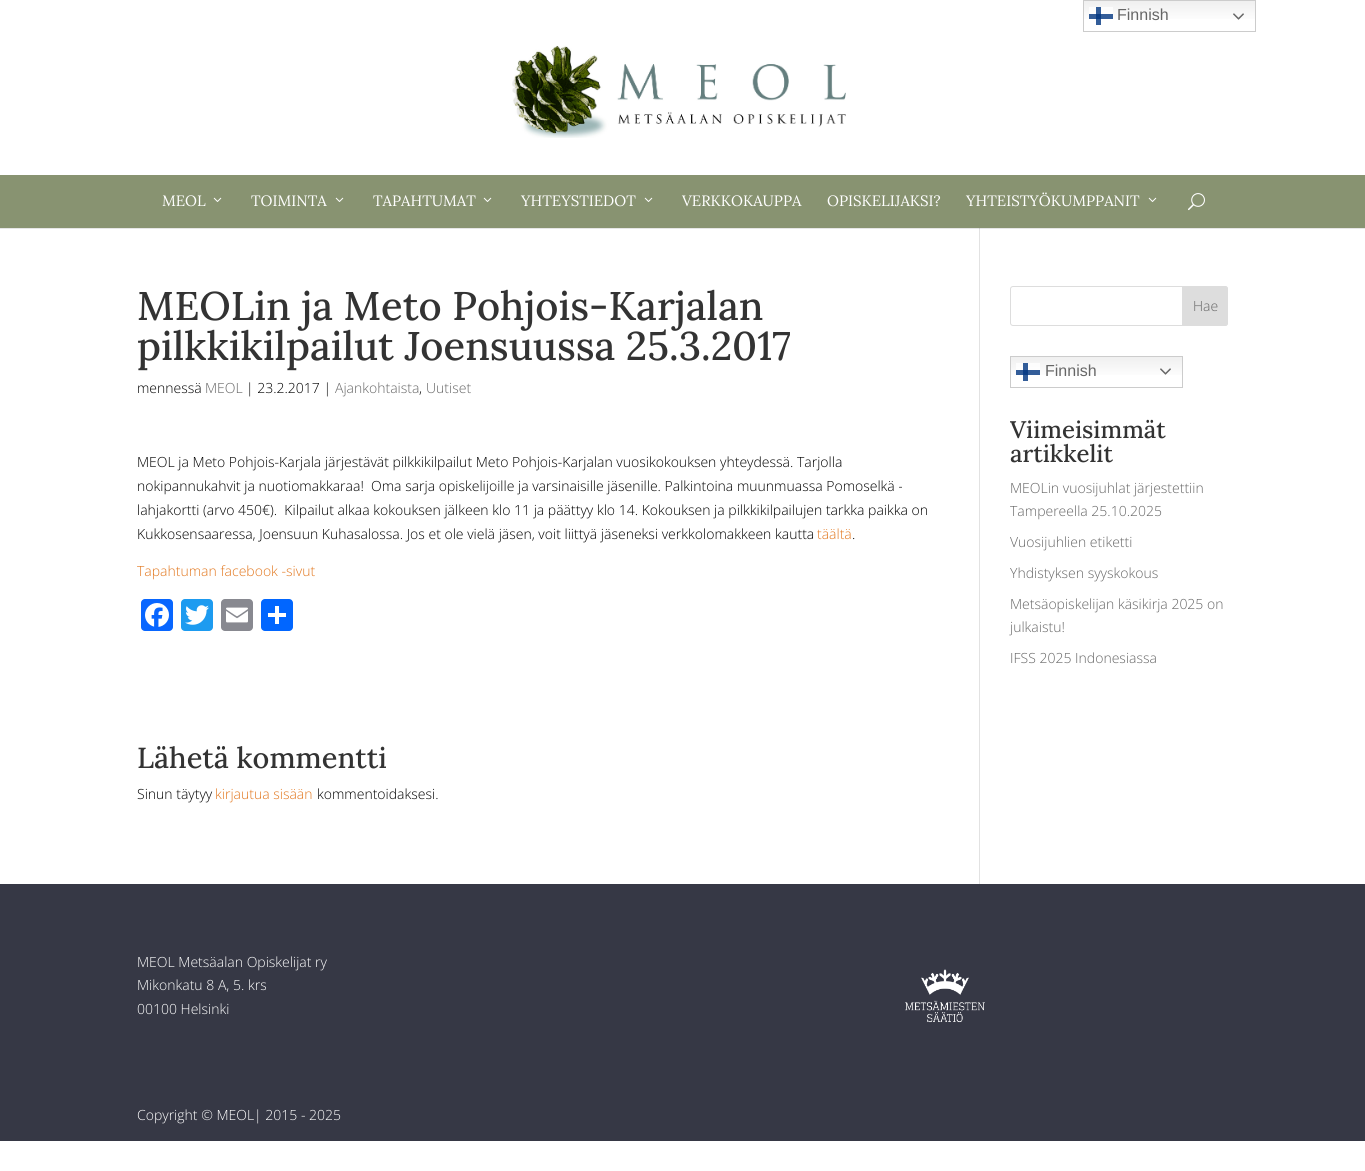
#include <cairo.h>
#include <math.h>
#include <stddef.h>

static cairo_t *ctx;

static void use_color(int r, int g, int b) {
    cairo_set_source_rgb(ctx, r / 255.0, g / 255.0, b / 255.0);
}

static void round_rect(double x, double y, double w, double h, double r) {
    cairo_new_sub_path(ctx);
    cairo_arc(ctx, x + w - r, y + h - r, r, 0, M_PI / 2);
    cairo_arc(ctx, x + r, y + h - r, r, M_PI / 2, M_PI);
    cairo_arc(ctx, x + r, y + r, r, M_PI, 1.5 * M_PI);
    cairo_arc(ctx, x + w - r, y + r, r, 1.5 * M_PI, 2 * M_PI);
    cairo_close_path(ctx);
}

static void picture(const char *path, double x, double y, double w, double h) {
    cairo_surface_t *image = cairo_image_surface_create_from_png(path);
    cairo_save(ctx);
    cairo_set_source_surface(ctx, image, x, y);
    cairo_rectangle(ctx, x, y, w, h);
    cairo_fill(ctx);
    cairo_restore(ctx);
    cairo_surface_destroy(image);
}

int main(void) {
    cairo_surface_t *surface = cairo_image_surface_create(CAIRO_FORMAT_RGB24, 1365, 1171);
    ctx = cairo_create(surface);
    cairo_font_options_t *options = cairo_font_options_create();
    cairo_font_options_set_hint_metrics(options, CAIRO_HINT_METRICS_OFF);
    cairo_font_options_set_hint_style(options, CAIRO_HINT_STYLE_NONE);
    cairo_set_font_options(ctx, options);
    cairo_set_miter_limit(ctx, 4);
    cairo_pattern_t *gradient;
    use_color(255, 255, 255);
    cairo_paint(ctx);
    use_color(230, 230, 230);
    cairo_rectangle(ctx, 0, 228, 1365, 1);
    cairo_fill(ctx);
    gradient = cairo_pattern_create_linear(1170, 0, 1170, 32);
    cairo_pattern_add_color_stop_rgba(gradient, 0, 0.937, 0.937, 0.937, 1);
    cairo_pattern_add_color_stop_rgba(gradient, 0.7, 1, 1, 1, 1);
    cairo_set_source(ctx, gradient);
    cairo_pattern_destroy(gradient);
    cairo_rectangle(ctx, 1084, 1, 171, 18);
    cairo_fill(ctx);
    gradient = cairo_pattern_create_linear(1170, 0, 1170, 32);
    cairo_pattern_add_color_stop_rgba(gradient, 0, 0.988, 0.988, 0.988, 1);
    cairo_pattern_add_color_stop_rgba(gradient, 0.7, 1, 1, 1, 1);
    cairo_set_source(ctx, gradient);
    cairo_pattern_destroy(gradient);
    cairo_rectangle(ctx, 1089, 7, 24, 10);
    cairo_fill(ctx);
    gradient = cairo_pattern_create_linear(1170, 0, 1170, 32);
    cairo_pattern_add_color_stop_rgba(gradient, 0, 0.196, 0.365, 0.6, 1);
    cairo_pattern_add_color_stop_rgba(gradient, 0.7, 0.2, 0.365, 0.6, 1);
    cairo_set_source(ctx, gradient);
    cairo_pattern_destroy(gradient);
    cairo_rectangle(ctx, 1096, 7, 5, 18);
    cairo_fill(ctx);
    cairo_rectangle(ctx, 1083.5, 0.5, 172, 31);
    use_color(204, 204, 204);
    cairo_set_line_width(ctx, 1);
    cairo_stroke(ctx);
    use_color(51, 93, 153);
    cairo_rectangle(ctx, 1089, 14, 24, 5);
    cairo_fill(ctx);
    cairo_select_font_face(ctx, "Liberation Sans", CAIRO_FONT_SLANT_NORMAL, CAIRO_FONT_WEIGHT_NORMAL);
    cairo_set_font_size(ctx, 16);
    use_color(102, 102, 102);
    cairo_move_to(ctx, 1117, 20);
    cairo_show_text(ctx, "Finnish");
    picture("img1.png", 1233, 13, 11, 7);
    use_color(10, 61, 133);
    cairo_rectangle(ctx, 1096, 14, 5, 5);
    cairo_fill(ctx);
    picture("img2.png", 512, 45, 334, 93);
    use_color(136, 147, 113);
    cairo_rectangle(ctx, 0, 175, 1365, 53);
    cairo_fill(ctx);
    cairo_select_font_face(ctx, "Lora", CAIRO_FONT_SLANT_NORMAL, CAIRO_FONT_WEIGHT_NORMAL);
    cairo_set_font_size(ctx, 15);
    use_color(255, 255, 255);
    cairo_move_to(ctx, 162, 206);
    cairo_show_text(ctx, "MEOL");
    picture("img3.png", 213, 197, 9, 5);
    cairo_move_to(ctx, 251, 206);
    cairo_show_text(ctx, "TOIMINTA");
    picture("img3.png", 335, 197, 9, 5);
    cairo_move_to(ctx, 373, 206);
    cairo_show_text(ctx, "TAPAHTUMAT");
    picture("img3.png", 483, 197, 9, 5);
    cairo_move_to(ctx, 521, 206);
    cairo_show_text(ctx, "YHTEYSTIEDOT");
    picture("img3.png", 644, 197, 9, 5);
    cairo_move_to(ctx, 682, 206);
    cairo_show_text(ctx, "VERKKOKAUPPA");
    cairo_move_to(ctx, 827, 206);
    cairo_show_text(ctx, "OPISKELIJAKSI?");
    cairo_move_to(ctx, 966, 206);
    cairo_show_text(ctx, "YHTEISTYÖKUMPPANIT");
    picture("img3.png", 1148, 197, 9, 5);
    picture("img4.png", 1188, 193, 17, 18);
    use_color(226, 226, 226);
    cairo_rectangle(ctx, 979, 228, 1, 656);
    cairo_fill(ctx);
    use_color(203, 203, 203);
    cairo_rectangle(ctx, 979, 228, 1, 1);
    cairo_fill(ctx);
    cairo_select_font_face(ctx, "Lora Medium", CAIRO_FONT_SLANT_NORMAL, CAIRO_FONT_WEIGHT_NORMAL);
    cairo_set_font_size(ctx, 40);
    use_color(51, 51, 51);
    cairo_move_to(ctx, 137, 320);
    cairo_show_text(ctx, "MEOLin ja Meto Pohjois-Karjalan");
    cairo_move_to(ctx, 137, 360);
    cairo_show_text(ctx, "pilkkikilpailut Joensuussa 25.3.2017");
    cairo_select_font_face(ctx, "Open Sans Light", CAIRO_FONT_SLANT_NORMAL, CAIRO_FONT_WEIGHT_NORMAL);
    cairo_set_font_size(ctx, 14);
    use_color(0, 0, 0);
    cairo_move_to(ctx, 137, 393);
    cairo_show_text(ctx, "mennessä");
    use_color(102, 102, 102);
    cairo_move_to(ctx, 205, 393);
    cairo_show_text(ctx, "MEOL");
    use_color(0, 0, 0);
    cairo_move_to(ctx, 246, 393);
    cairo_show_text(ctx, "| 23.2.2017 |");
    use_color(102, 102, 102);
    cairo_move_to(ctx, 335, 393);
    cairo_show_text(ctx, "Ajankohtaista");
    use_color(0, 0, 0);
    cairo_move_to(ctx, 419, 393);
    cairo_show_text(ctx, ",");
    use_color(102, 102, 102);
    cairo_move_to(ctx, 426, 393);
    cairo_show_text(ctx, "Uutiset");
    use_color(0, 0, 0);
    cairo_move_to(ctx, 137, 467);
    cairo_show_text(ctx, "MEOL ja Meto Pohjois-Karjala järjestävät pilkkikilpailut Meto Pohjois-Karjalan vuosikokouksen yhteydessä. Tarjolla");
    cairo_move_to(ctx, 137, 491);
    cairo_show_text(ctx, "nokipannukahvit ja nuotiomakkaraa!  Oma sarja opiskelijoille ja varsinaisille jäsenille. Palkintoina muunmuassa Pomoselkä -");
    cairo_move_to(ctx, 137, 515);
    cairo_show_text(ctx, "lahjakortti (arvo 450€).  Kilpailut alkaa kokouksen jälkeen klo 11 ja päättyy klo 14. Kokouksen ja pilkkikilpailujen tarkka paikka on");
    cairo_move_to(ctx, 137, 539);
    cairo_show_text(ctx, "Kukkosensaaressa, Joensuun Kuhasalossa. Jos et ole vielä jäsen, voit liittyä jäseneksi verkkolomakkeen kautta");
    use_color(226, 119, 30);
    cairo_move_to(ctx, 817, 539);
    cairo_show_text(ctx, "täältä");
    use_color(0, 0, 0);
    cairo_move_to(ctx, 852, 539);
    cairo_show_text(ctx, ".");
    use_color(226, 119, 30);
    cairo_move_to(ctx, 137, 576);
    cairo_show_text(ctx, "Tapahtuman facebook -sivut");
    use_color(8, 102, 255);
    round_rect(141, 599, 32, 32, 4);
    cairo_fill(ctx);
    picture("img5.png", 145, 603, 24, 24);
    use_color(29, 155, 240);
    round_rect(181, 599, 32, 32, 4);
    cairo_fill(ctx);
    picture("img6.png", 185, 605, 24, 20);
    use_color(136, 137, 144);
    round_rect(221, 599, 32, 32, 4);
    cairo_fill(ctx);
    picture("img7.png", 226, 607, 22, 16);
    use_color(1, 102, 255);
    round_rect(261, 599, 32, 32, 4);
    cairo_fill(ctx);
    use_color(255, 255, 255);
    cairo_rectangle(ctx, 275, 606, 4, 18);
    cairo_fill(ctx);
    cairo_rectangle(ctx, 268, 613, 18, 4);
    cairo_fill(ctx);
    cairo_select_font_face(ctx, "Lora Medium", CAIRO_FONT_SLANT_NORMAL, CAIRO_FONT_WEIGHT_NORMAL);
    cairo_set_font_size(ctx, 29);
    use_color(51, 51, 51);
    cairo_move_to(ctx, 137, 768);
    cairo_show_text(ctx, "Lähetä kommentti");
    cairo_select_font_face(ctx, "Open Sans Light", CAIRO_FONT_SLANT_NORMAL, CAIRO_FONT_WEIGHT_NORMAL);
    cairo_set_font_size(ctx, 14);
    use_color(0, 0, 0);
    cairo_move_to(ctx, 137, 799);
    cairo_show_text(ctx, "Sinun täytyy");
    use_color(226, 119, 30);
    cairo_move_to(ctx, 215, 799);
    cairo_show_text(ctx, "kirjautua sisään");
    use_color(0, 0, 0);
    cairo_move_to(ctx, 317, 799);
    cairo_show_text(ctx, "kommentoidaksesi.");
    round_rect(1010.5, 286.5, 217, 39, 2.5);
    use_color(221, 221, 221);
    cairo_stroke(ctx);
    cairo_new_path(ctx);
    cairo_move_to(ctx, 1182.5, 286.5);
    cairo_line_to(ctx, 1225, 286.5);
    cairo_curve_to(ctx, 1226.5, 286.5, 1227.5, 287.5, 1227.5, 289);
    cairo_line_to(ctx, 1227.5, 323);
    cairo_curve_to(ctx, 1227.5, 324.5, 1226.5, 325.5, 1225, 325.5);
    cairo_line_to(ctx, 1182.5, 325.5);
    cairo_close_path(ctx);
    cairo_fill_preserve(ctx);
    cairo_stroke(ctx);
    use_color(102, 102, 102);
    cairo_move_to(ctx, 1193, 311);
    cairo_show_text(ctx, "Hae");
    gradient = cairo_pattern_create_linear(1097, 356, 1097, 388);
    cairo_pattern_add_color_stop_rgba(gradient, 0, 0.937, 0.937, 0.937, 1);
    cairo_pattern_add_color_stop_rgba(gradient, 0.7, 1, 1, 1, 1);
    cairo_set_source(ctx, gradient);
    cairo_pattern_destroy(gradient);
    cairo_rectangle(ctx, 1011, 357, 171, 18);
    cairo_fill(ctx);
    gradient = cairo_pattern_create_linear(1097, 356, 1097, 388);
    cairo_pattern_add_color_stop_rgba(gradient, 0, 0.988, 0.988, 0.988, 1);
    cairo_pattern_add_color_stop_rgba(gradient, 0.7, 1, 1, 1, 1);
    cairo_set_source(ctx, gradient);
    cairo_pattern_destroy(gradient);
    cairo_rectangle(ctx, 1016, 363, 24, 10);
    cairo_fill(ctx);
    gradient = cairo_pattern_create_linear(1097, 356, 1097, 388);
    cairo_pattern_add_color_stop_rgba(gradient, 0, 0.196, 0.365, 0.6, 1);
    cairo_pattern_add_color_stop_rgba(gradient, 0.7, 0.2, 0.365, 0.6, 1);
    cairo_set_source(ctx, gradient);
    cairo_pattern_destroy(gradient);
    cairo_rectangle(ctx, 1023, 363, 5, 18);
    cairo_fill(ctx);
    cairo_rectangle(ctx, 1010.5, 356.5, 172, 31);
    use_color(204, 204, 204);
    cairo_stroke(ctx);
    use_color(51, 93, 153);
    cairo_rectangle(ctx, 1016, 370, 24, 5);
    cairo_fill(ctx);
    cairo_select_font_face(ctx, "Liberation Sans", CAIRO_FONT_SLANT_NORMAL, CAIRO_FONT_WEIGHT_NORMAL);
    cairo_set_font_size(ctx, 16);
    use_color(102, 102, 102);
    cairo_move_to(ctx, 1045, 376);
    cairo_show_text(ctx, "Finnish");
    picture("img8.png", 1160, 368, 11, 7);
    use_color(10, 61, 133);
    cairo_rectangle(ctx, 1023, 370, 5, 5);
    cairo_fill(ctx);
    cairo_select_font_face(ctx, "Lora Medium", CAIRO_FONT_SLANT_NORMAL, CAIRO_FONT_WEIGHT_NORMAL);
    cairo_set_font_size(ctx, 24);
    use_color(51, 51, 51);
    cairo_move_to(ctx, 1010, 438);
    cairo_show_text(ctx, "Viimeisimmät");
    cairo_move_to(ctx, 1010, 462);
    cairo_show_text(ctx, "artikkelit");
    cairo_select_font_face(ctx, "Open Sans Light", CAIRO_FONT_SLANT_NORMAL, CAIRO_FONT_WEIGHT_NORMAL);
    cairo_set_font_size(ctx, 14);
    use_color(102, 102, 102);
    cairo_move_to(ctx, 1010, 493);
    cairo_show_text(ctx, "MEOLin vuosijuhlat järjestettiin");
    cairo_move_to(ctx, 1010, 516);
    cairo_show_text(ctx, "Tampereella 25.10.2025");
    cairo_move_to(ctx, 1010, 547);
    cairo_show_text(ctx, "Vuosijuhlien etiketti");
    cairo_move_to(ctx, 1010, 578);
    cairo_show_text(ctx, "Yhdistyksen syyskokous");
    cairo_move_to(ctx, 1010, 609);
    cairo_show_text(ctx, "Metsäopiskelijan käsikirja 2025 on");
    cairo_move_to(ctx, 1010, 632);
    cairo_show_text(ctx, "julkaistu!");
    cairo_move_to(ctx, 1010, 663);
    cairo_show_text(ctx, "IFSS 2025 Indonesiassa");
    use_color(54, 56, 69);
    cairo_rectangle(ctx, 0, 884, 1365, 257);
    cairo_fill(ctx);
    use_color(255, 255, 255);
    cairo_move_to(ctx, 137, 967);
    cairo_show_text(ctx, "MEOL Metsäalan Opiskelijat ry");
    cairo_move_to(ctx, 137, 990);
    cairo_show_text(ctx, "Mikonkatu 8 A, 5. krs");
    cairo_move_to(ctx, 137, 1014);
    cairo_show_text(ctx, "00100 Helsinki");
    picture("img9.png", 905, 969, 80, 54);
    cairo_move_to(ctx, 137, 1120);
    cairo_show_text(ctx, "Copyright © MEOL| 2015 - 2025");
    cairo_surface_write_to_png(surface, "result.png");
    cairo_font_options_destroy(options);
    cairo_destroy(ctx);
    cairo_surface_destroy(surface);
    return 0;
}
